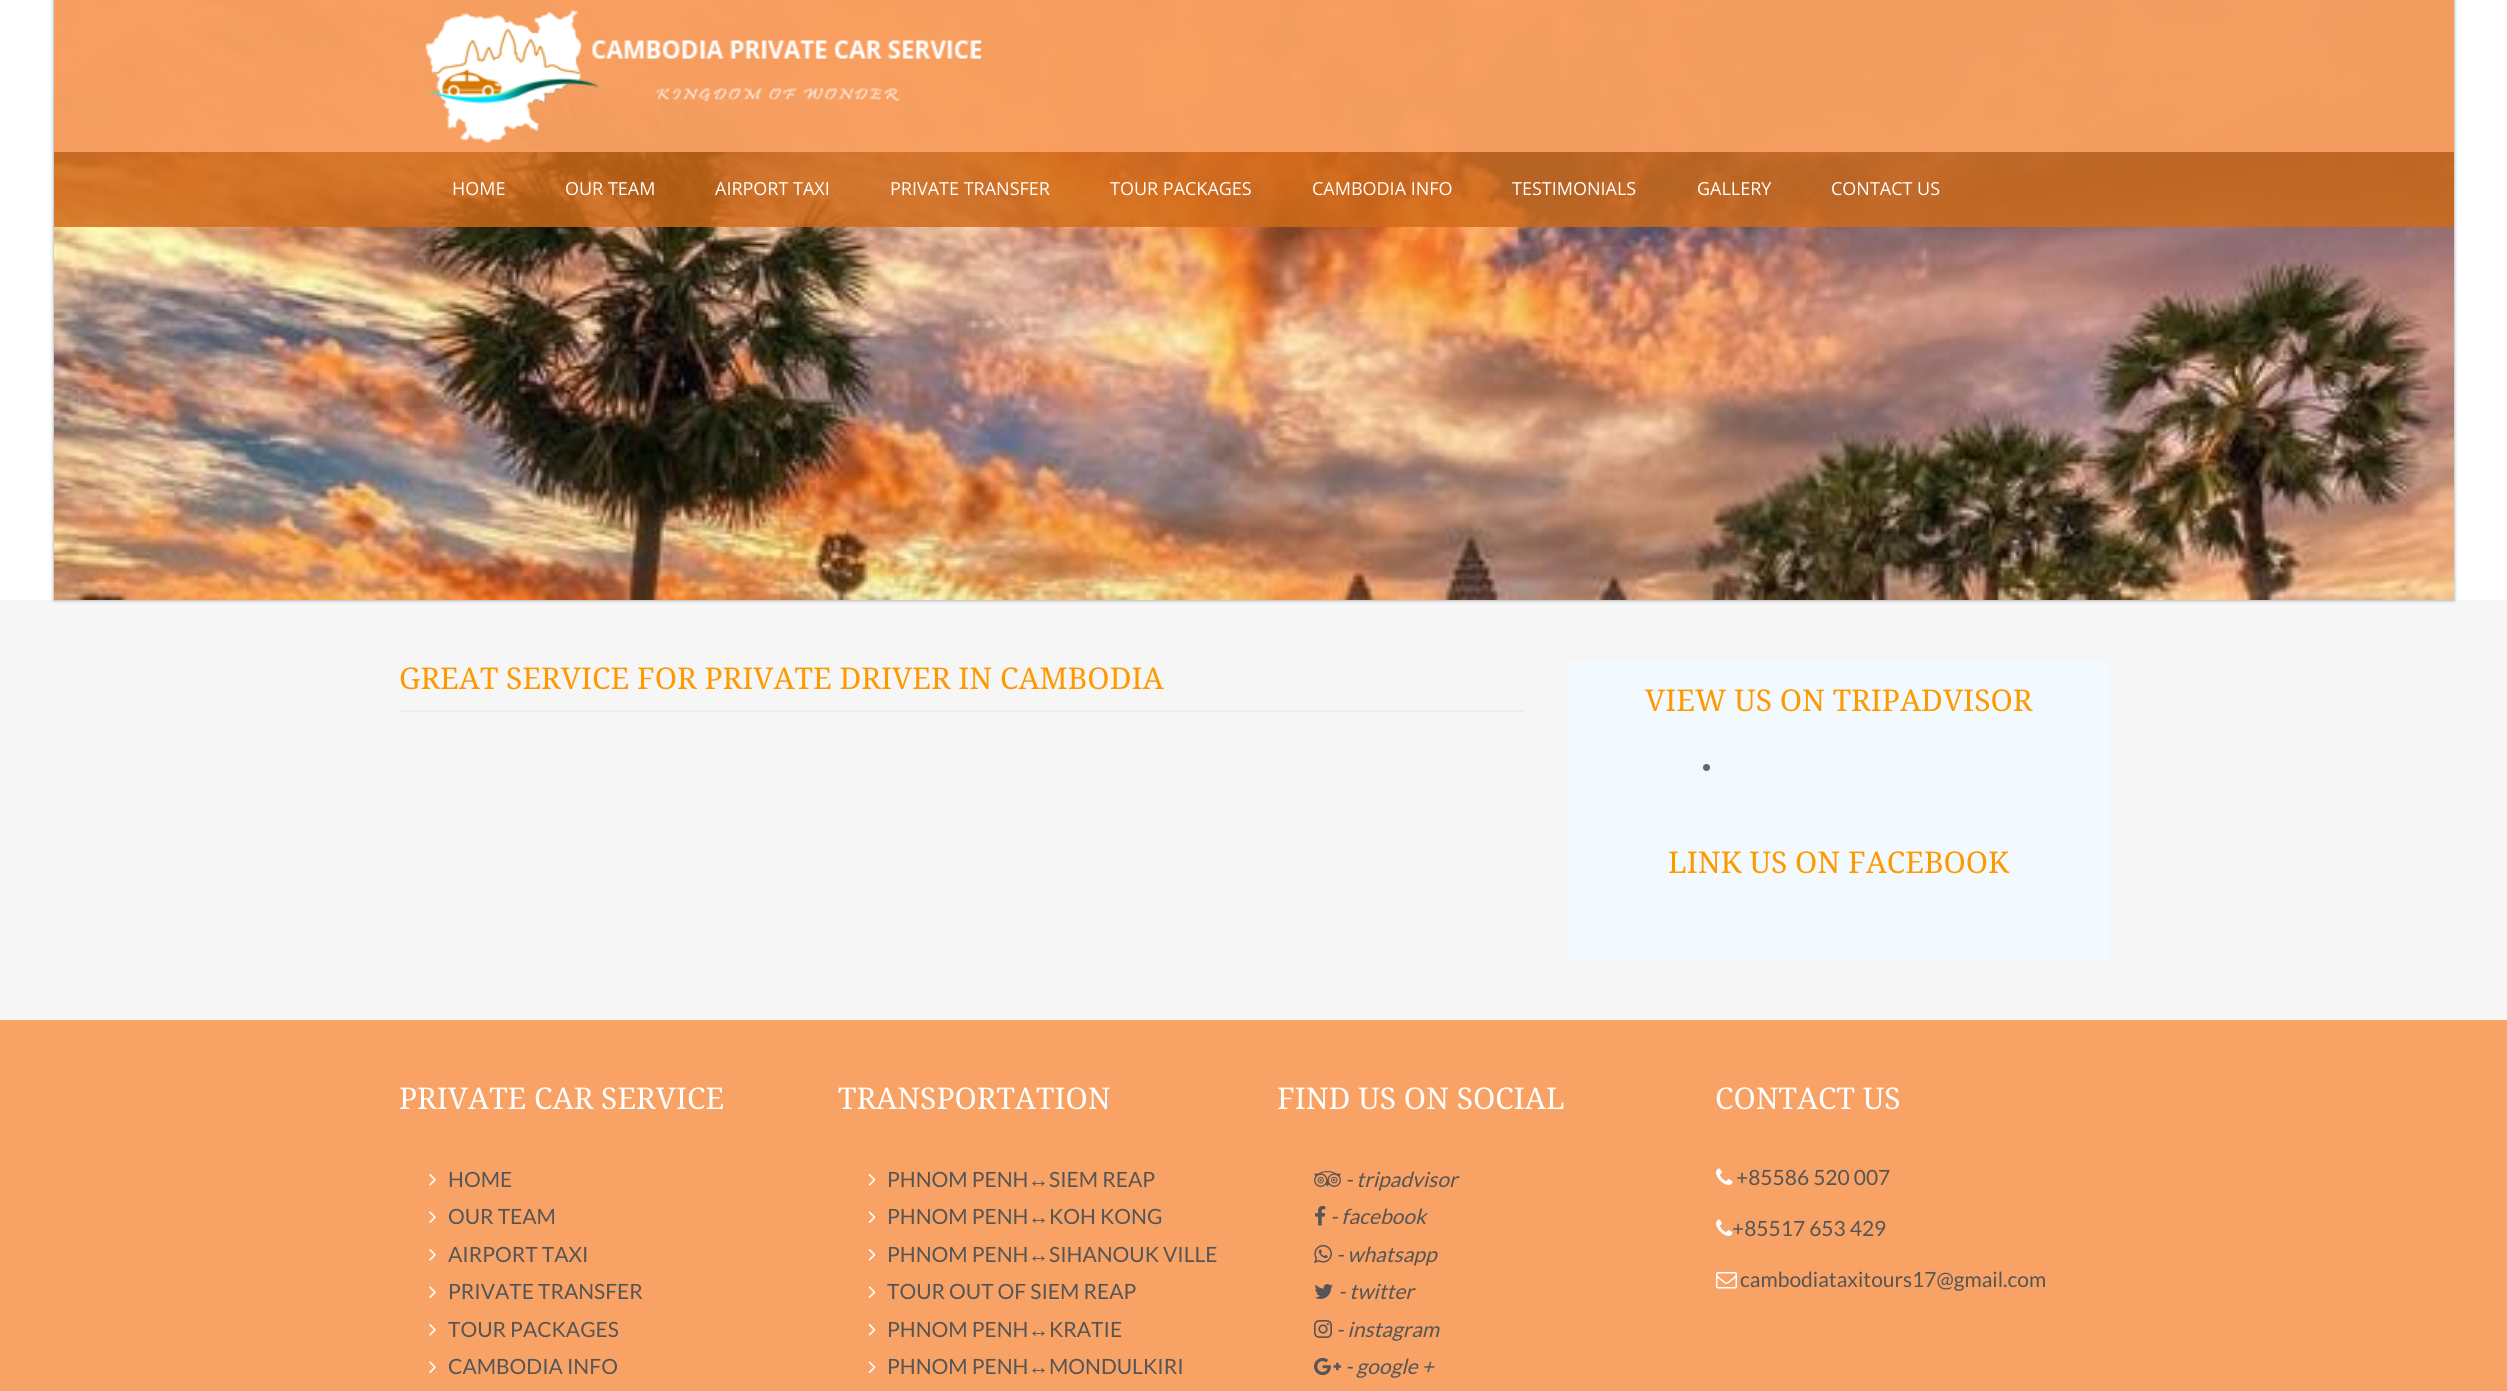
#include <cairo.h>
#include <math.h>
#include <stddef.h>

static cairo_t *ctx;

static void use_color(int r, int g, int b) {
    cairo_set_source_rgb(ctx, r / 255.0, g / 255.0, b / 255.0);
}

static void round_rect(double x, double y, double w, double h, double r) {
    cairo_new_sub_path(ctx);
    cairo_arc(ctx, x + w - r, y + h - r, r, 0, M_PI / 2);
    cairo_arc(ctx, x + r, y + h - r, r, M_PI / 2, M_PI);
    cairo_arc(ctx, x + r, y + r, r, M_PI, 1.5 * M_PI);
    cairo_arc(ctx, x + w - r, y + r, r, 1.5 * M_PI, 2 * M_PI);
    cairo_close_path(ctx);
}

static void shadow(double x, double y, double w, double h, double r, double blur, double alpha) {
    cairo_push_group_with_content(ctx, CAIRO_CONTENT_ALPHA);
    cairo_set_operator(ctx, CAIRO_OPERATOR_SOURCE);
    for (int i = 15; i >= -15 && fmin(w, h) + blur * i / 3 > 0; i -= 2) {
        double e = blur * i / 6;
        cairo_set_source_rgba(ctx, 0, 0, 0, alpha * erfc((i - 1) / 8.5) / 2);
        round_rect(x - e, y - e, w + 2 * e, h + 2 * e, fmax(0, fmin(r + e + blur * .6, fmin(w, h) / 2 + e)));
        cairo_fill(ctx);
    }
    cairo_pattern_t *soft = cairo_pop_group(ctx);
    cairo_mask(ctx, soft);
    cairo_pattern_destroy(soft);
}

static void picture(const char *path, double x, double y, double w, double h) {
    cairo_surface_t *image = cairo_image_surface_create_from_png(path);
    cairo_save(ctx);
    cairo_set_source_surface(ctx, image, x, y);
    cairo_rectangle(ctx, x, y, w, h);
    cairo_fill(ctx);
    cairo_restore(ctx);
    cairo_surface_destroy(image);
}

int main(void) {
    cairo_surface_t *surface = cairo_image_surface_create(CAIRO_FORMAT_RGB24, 2507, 1391);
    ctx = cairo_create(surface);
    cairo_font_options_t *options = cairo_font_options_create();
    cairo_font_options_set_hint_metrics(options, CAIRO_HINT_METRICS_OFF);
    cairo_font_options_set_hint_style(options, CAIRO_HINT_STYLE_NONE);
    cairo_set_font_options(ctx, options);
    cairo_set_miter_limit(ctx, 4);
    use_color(255, 255, 255);
    cairo_paint(ctx);
    use_color(246, 246, 246);
    cairo_rectangle(ctx, 0, 600, 2507, 420);
    cairo_fill(ctx);
    use_color(100, 100, 100);
    shadow(54, 0, 2400, 600, 0, 2, 0.7);
    picture("img1.png", 54, 0, 2400, 600);
    cairo_set_source_rgba(ctx, 0.973, 0.624, 0.376, 0.97);
    cairo_rectangle(ctx, 54, 0, 2400, 152);
    cairo_fill(ctx);
    picture("img2.png", 425, 9, 557, 134);
    cairo_set_source_rgba(ctx, 0.816, 0.416, 0.098, 0.83);
    cairo_rectangle(ctx, 54, 152, 2400, 75);
    cairo_fill(ctx);
    cairo_select_font_face(ctx, "Open Sans", CAIRO_FONT_SLANT_NORMAL, CAIRO_FONT_WEIGHT_NORMAL);
    cairo_set_font_size(ctx, 18);
    use_color(255, 255, 255);
    cairo_move_to(ctx, 452, 195);
    cairo_show_text(ctx, "HOME");
    cairo_move_to(ctx, 565, 195);
    cairo_show_text(ctx, "OUR TEAM");
    cairo_move_to(ctx, 715, 195);
    cairo_show_text(ctx, "AIRPORT TAXI");
    cairo_move_to(ctx, 890, 195);
    cairo_show_text(ctx, "PRIVATE TRANSFER");
    cairo_move_to(ctx, 1110, 195);
    cairo_show_text(ctx, "TOUR PACKAGES");
    cairo_move_to(ctx, 1312, 195);
    cairo_show_text(ctx, "CAMBODIA INFO");
    cairo_move_to(ctx, 1512, 195);
    cairo_show_text(ctx, "TESTIMONIALS");
    cairo_move_to(ctx, 1697, 195);
    cairo_show_text(ctx, "GALLERY");
    cairo_move_to(ctx, 1831, 195);
    cairo_show_text(ctx, "CONTACT US");
    use_color(238, 238, 238);
    cairo_rectangle(ctx, 399, 710, 1125, 2);
    cairo_fill(ctx);
    cairo_select_font_face(ctx, "Droid Serif", CAIRO_FONT_SLANT_NORMAL, CAIRO_FONT_WEIGHT_NORMAL);
    cairo_set_font_size(ctx, 30);
    use_color(255, 153, 0);
    cairo_move_to(ctx, 399, 689);
    cairo_show_text(ctx, "GREAT SERVICE FOR PRIVATE DRIVER IN CAMBODIA");
    use_color(243, 250, 255);
    cairo_rectangle(ctx, 1569, 660, 540, 300);
    cairo_fill(ctx);
    use_color(255, 153, 0);
    cairo_move_to(ctx, 1645, 711);
    cairo_show_text(ctx, "VIEW US ON TRIPADVISOR");
    use_color(102, 101, 101);
    cairo_new_path(ctx);
    cairo_arc(ctx, 1706.5, 767.5, 3.5, 0, 2 * M_PI);
    cairo_fill(ctx);
    use_color(255, 153, 0);
    cairo_move_to(ctx, 1668, 873);
    cairo_show_text(ctx, "LINK US ON FACEBOOK");
    use_color(248, 162, 101);
    cairo_rectangle(ctx, 0, 1020, 2507, 371);
    cairo_fill(ctx);
    use_color(255, 255, 255);
    cairo_move_to(ctx, 399, 1109);
    cairo_show_text(ctx, "PRIVATE CAR SERVICE");
    picture("img3.png", 429, 1174, 7, 12);
    cairo_select_font_face(ctx, "Lato", CAIRO_FONT_SLANT_NORMAL, CAIRO_FONT_WEIGHT_NORMAL);
    cairo_set_font_size(ctx, 21);
    use_color(85, 85, 85);
    cairo_move_to(ctx, 448, 1187);
    cairo_show_text(ctx, "HOME");
    picture("img4.png", 429, 1211, 7, 12);
    cairo_move_to(ctx, 448, 1224);
    cairo_show_text(ctx, "OUR TEAM");
    picture("img3.png", 429, 1249, 7, 12);
    cairo_move_to(ctx, 448, 1262);
    cairo_show_text(ctx, "AIRPORT TAXI");
    picture("img4.png", 429, 1286, 7, 12);
    cairo_move_to(ctx, 448, 1299);
    cairo_show_text(ctx, "PRIVATE TRANSFER");
    picture("img3.png", 429, 1324, 7, 12);
    cairo_move_to(ctx, 448, 1337);
    cairo_show_text(ctx, "TOUR PACKAGES");
    picture("img4.png", 429, 1361, 7, 12);
    cairo_move_to(ctx, 448, 1374);
    cairo_show_text(ctx, "CAMBODIA INFO");
    cairo_select_font_face(ctx, "Droid Serif", CAIRO_FONT_SLANT_NORMAL, CAIRO_FONT_WEIGHT_NORMAL);
    cairo_set_font_size(ctx, 30);
    use_color(255, 255, 255);
    cairo_move_to(ctx, 838, 1109);
    cairo_show_text(ctx, "TRANSPORTATION");
    picture("img5.png", 868, 1174, 8, 12);
    cairo_select_font_face(ctx, "Lato", CAIRO_FONT_SLANT_NORMAL, CAIRO_FONT_WEIGHT_NORMAL);
    cairo_set_font_size(ctx, 21);
    use_color(85, 85, 85);
    cairo_move_to(ctx, 887, 1187);
    cairo_show_text(ctx, "PHNOM PENH");
    cairo_select_font_face(ctx, "Liberation Sans", CAIRO_FONT_SLANT_NORMAL, CAIRO_FONT_WEIGHT_NORMAL);
    cairo_move_to(ctx, 1028, 1187);
    cairo_show_text(ctx, "↔");
    cairo_select_font_face(ctx, "Lato", CAIRO_FONT_SLANT_NORMAL, CAIRO_FONT_WEIGHT_NORMAL);
    cairo_move_to(ctx, 1049, 1187);
    cairo_show_text(ctx, "SIEM REAP");
    picture("img6.png", 868, 1211, 8, 12);
    cairo_move_to(ctx, 887, 1224);
    cairo_show_text(ctx, "PHNOM PENH");
    cairo_select_font_face(ctx, "Liberation Sans", CAIRO_FONT_SLANT_NORMAL, CAIRO_FONT_WEIGHT_NORMAL);
    cairo_move_to(ctx, 1028, 1224);
    cairo_show_text(ctx, "↔");
    cairo_select_font_face(ctx, "Lato", CAIRO_FONT_SLANT_NORMAL, CAIRO_FONT_WEIGHT_NORMAL);
    cairo_move_to(ctx, 1049, 1224);
    cairo_show_text(ctx, "KOH KONG");
    picture("img5.png", 868, 1249, 8, 12);
    cairo_move_to(ctx, 887, 1262);
    cairo_show_text(ctx, "PHNOM PENH");
    cairo_select_font_face(ctx, "Liberation Sans", CAIRO_FONT_SLANT_NORMAL, CAIRO_FONT_WEIGHT_NORMAL);
    cairo_move_to(ctx, 1028, 1262);
    cairo_show_text(ctx, "↔");
    cairo_select_font_face(ctx, "Lato", CAIRO_FONT_SLANT_NORMAL, CAIRO_FONT_WEIGHT_NORMAL);
    cairo_move_to(ctx, 1049, 1262);
    cairo_show_text(ctx, "SIHANOUK VILLE");
    picture("img6.png", 868, 1286, 8, 12);
    cairo_move_to(ctx, 887, 1299);
    cairo_show_text(ctx, "TOUR OUT OF SIEM REAP");
    picture("img5.png", 868, 1324, 8, 12);
    cairo_move_to(ctx, 887, 1337);
    cairo_show_text(ctx, "PHNOM PENH");
    cairo_select_font_face(ctx, "Liberation Sans", CAIRO_FONT_SLANT_NORMAL, CAIRO_FONT_WEIGHT_NORMAL);
    cairo_move_to(ctx, 1028, 1337);
    cairo_show_text(ctx, "↔");
    cairo_select_font_face(ctx, "Lato", CAIRO_FONT_SLANT_NORMAL, CAIRO_FONT_WEIGHT_NORMAL);
    cairo_move_to(ctx, 1049, 1337);
    cairo_show_text(ctx, "KRATIE");
    picture("img6.png", 868, 1361, 8, 12);
    cairo_move_to(ctx, 887, 1374);
    cairo_show_text(ctx, "PHNOM PENH");
    cairo_select_font_face(ctx, "Liberation Sans", CAIRO_FONT_SLANT_NORMAL, CAIRO_FONT_WEIGHT_NORMAL);
    cairo_move_to(ctx, 1028, 1374);
    cairo_show_text(ctx, "↔");
    cairo_select_font_face(ctx, "Lato", CAIRO_FONT_SLANT_NORMAL, CAIRO_FONT_WEIGHT_NORMAL);
    cairo_move_to(ctx, 1049, 1374);
    cairo_show_text(ctx, "MONDULKIRI");
    cairo_select_font_face(ctx, "Droid Serif", CAIRO_FONT_SLANT_NORMAL, CAIRO_FONT_WEIGHT_NORMAL);
    cairo_set_font_size(ctx, 30);
    use_color(255, 255, 255);
    cairo_move_to(ctx, 1277, 1109);
    cairo_show_text(ctx, "FIND US ON SOCIAL");
    picture("img7.png", 1314, 1171, 27, 16);
    cairo_select_font_face(ctx, "Lato", CAIRO_FONT_SLANT_ITALIC, CAIRO_FONT_WEIGHT_NORMAL);
    cairo_set_font_size(ctx, 21);
    use_color(85, 85, 85);
    cairo_move_to(ctx, 1345, 1187);
    cairo_show_text(ctx, "- tripadvisor");
    picture("img8.png", 1315, 1206, 11, 20);
    cairo_move_to(ctx, 1330, 1224);
    cairo_show_text(ctx, "- facebook");
    picture("img9.png", 1314, 1244, 18, 19);
    cairo_move_to(ctx, 1336, 1262);
    cairo_show_text(ctx, "- whatsapp");
    picture("img10.png", 1314, 1284, 19, 15);
    cairo_move_to(ctx, 1338, 1299);
    cairo_show_text(ctx, "- twitter");
    picture("img11.png", 1314, 1320, 18, 18);
    cairo_move_to(ctx, 1336, 1337);
    cairo_show_text(ctx, "- instagram");
    picture("img12.png", 1314, 1357, 27, 19);
    cairo_move_to(ctx, 1345, 1374);
    cairo_show_text(ctx, "- google +");
    cairo_select_font_face(ctx, "Droid Serif", CAIRO_FONT_SLANT_NORMAL, CAIRO_FONT_WEIGHT_NORMAL);
    cairo_set_font_size(ctx, 30);
    use_color(255, 255, 255);
    cairo_move_to(ctx, 1715, 1109);
    cairo_show_text(ctx, "CONTACT US");
    picture("img13.png", 1716, 1168, 17, 17);
    cairo_select_font_face(ctx, "Lato", CAIRO_FONT_SLANT_NORMAL, CAIRO_FONT_WEIGHT_NORMAL);
    cairo_set_font_size(ctx, 21);
    use_color(85, 85, 85);
    cairo_move_to(ctx, 1736, 1185);
    cairo_show_text(ctx, "+85586 520 007");
    picture("img13.png", 1716, 1219, 17, 17);
    cairo_move_to(ctx, 1732, 1236);
    cairo_show_text(ctx, "+85517 653 429");
    picture("img14.png", 1716, 1272, 21, 17);
    cairo_move_to(ctx, 1740, 1287);
    cairo_show_text(ctx, "cambodiataxitours17@gmail.com");
    cairo_surface_write_to_png(surface, "result.png");
    cairo_font_options_destroy(options);
    cairo_destroy(ctx);
    cairo_surface_destroy(surface);
    return 0;
}
